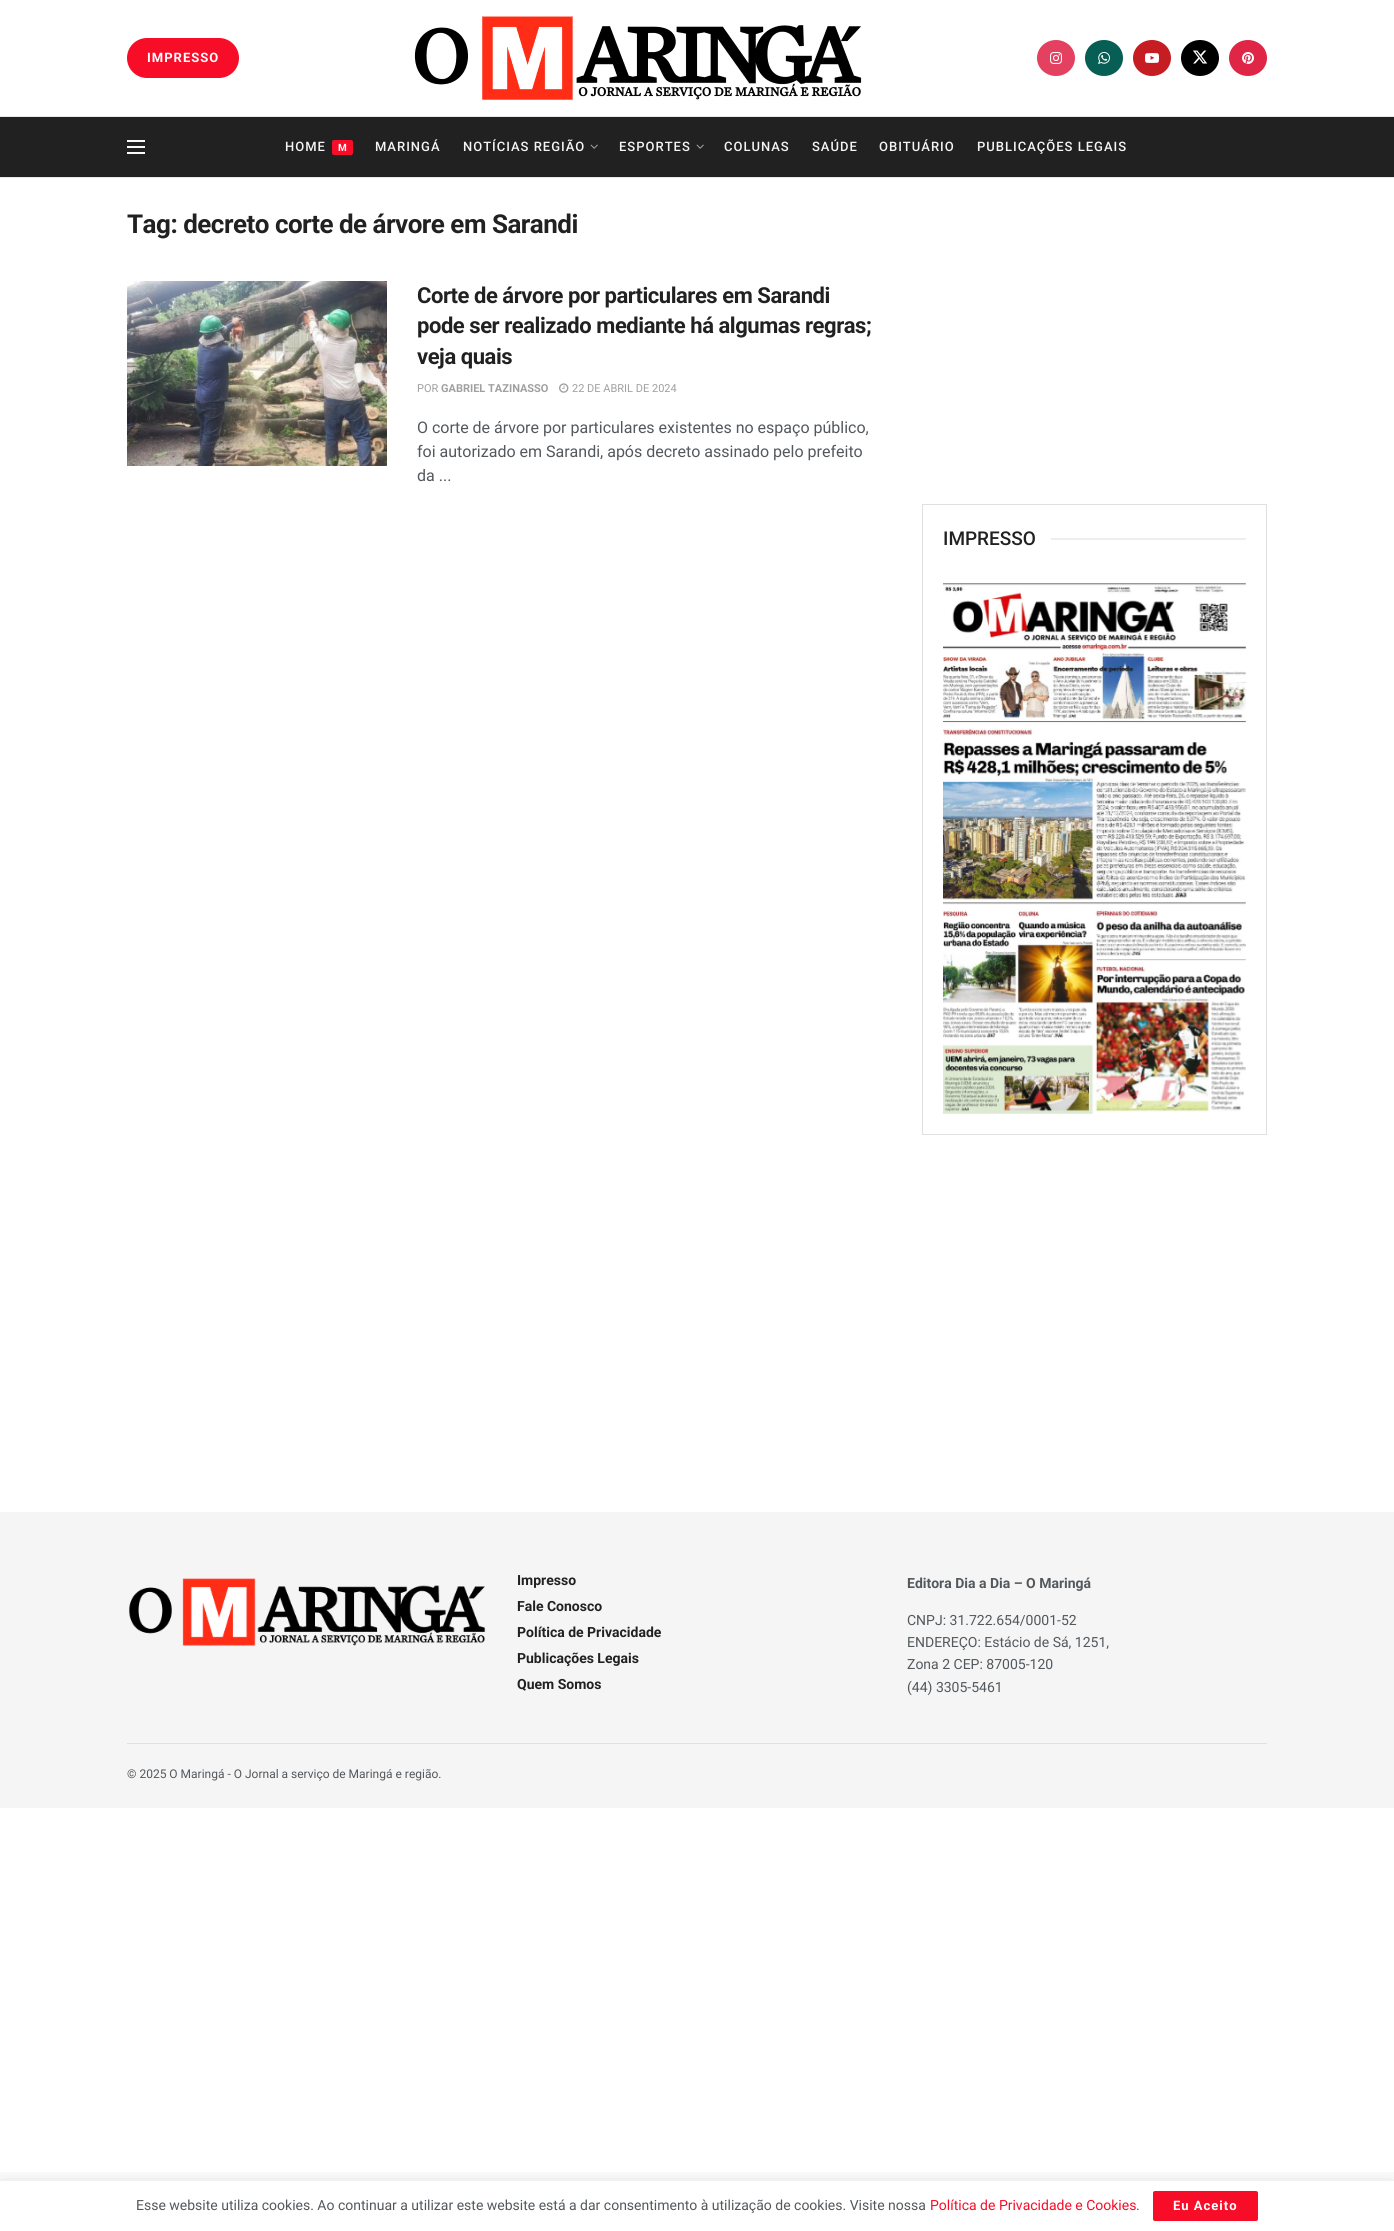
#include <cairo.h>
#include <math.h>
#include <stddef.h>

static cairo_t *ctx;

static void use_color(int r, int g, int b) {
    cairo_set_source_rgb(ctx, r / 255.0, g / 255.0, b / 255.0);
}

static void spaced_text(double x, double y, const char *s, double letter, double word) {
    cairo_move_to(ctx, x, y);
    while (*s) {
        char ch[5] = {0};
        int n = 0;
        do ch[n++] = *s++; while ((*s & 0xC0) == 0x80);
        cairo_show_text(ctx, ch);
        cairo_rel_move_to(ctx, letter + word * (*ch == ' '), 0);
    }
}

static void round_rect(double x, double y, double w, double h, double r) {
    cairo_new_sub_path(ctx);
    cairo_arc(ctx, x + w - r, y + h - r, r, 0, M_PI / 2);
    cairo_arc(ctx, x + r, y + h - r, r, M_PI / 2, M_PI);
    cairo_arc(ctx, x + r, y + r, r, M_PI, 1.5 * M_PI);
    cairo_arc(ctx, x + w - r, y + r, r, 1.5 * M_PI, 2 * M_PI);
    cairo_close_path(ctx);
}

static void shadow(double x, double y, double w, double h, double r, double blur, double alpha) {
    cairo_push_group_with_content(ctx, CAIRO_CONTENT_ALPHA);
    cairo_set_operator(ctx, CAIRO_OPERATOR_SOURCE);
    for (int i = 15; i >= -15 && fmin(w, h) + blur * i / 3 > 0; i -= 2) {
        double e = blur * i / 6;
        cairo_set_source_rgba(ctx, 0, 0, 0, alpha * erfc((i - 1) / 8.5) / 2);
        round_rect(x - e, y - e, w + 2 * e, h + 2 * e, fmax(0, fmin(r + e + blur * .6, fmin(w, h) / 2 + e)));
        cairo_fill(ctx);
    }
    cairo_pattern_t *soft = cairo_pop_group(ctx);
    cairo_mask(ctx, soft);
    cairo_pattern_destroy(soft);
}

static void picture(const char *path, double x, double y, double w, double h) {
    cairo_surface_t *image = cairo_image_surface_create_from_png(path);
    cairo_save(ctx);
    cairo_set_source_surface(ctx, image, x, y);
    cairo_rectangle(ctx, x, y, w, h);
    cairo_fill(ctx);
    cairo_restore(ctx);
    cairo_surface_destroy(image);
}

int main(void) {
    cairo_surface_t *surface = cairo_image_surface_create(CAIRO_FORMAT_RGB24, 1394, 2231);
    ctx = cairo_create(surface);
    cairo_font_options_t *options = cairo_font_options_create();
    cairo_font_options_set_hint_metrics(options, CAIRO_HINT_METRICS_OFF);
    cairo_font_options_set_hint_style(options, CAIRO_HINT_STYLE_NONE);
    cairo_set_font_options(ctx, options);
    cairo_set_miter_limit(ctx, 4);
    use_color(255, 255, 255);
    cairo_paint(ctx);
    use_color(247, 13, 40);
    round_rect(127, 38, 112, 40, 20);
    cairo_fill(ctx);
    cairo_select_font_face(ctx, "Roboto", CAIRO_FONT_SLANT_NORMAL, CAIRO_FONT_WEIGHT_BOLD);
    cairo_set_font_size(ctx, 13);
    use_color(255, 255, 255);
    spaced_text(147, 62, "IMPRESSO", 1, 0);
    picture("img1.png", 414, 16, 448, 84);
    use_color(228, 64, 95);
    cairo_new_path(ctx);
    cairo_move_to(ctx, 1056, 40);
    cairo_curve_to(ctx, 1066.5, 40, 1075, 48, 1075, 58);
    cairo_curve_to(ctx, 1075, 68, 1066.5, 76, 1056, 76);
    cairo_curve_to(ctx, 1045.5, 76, 1037, 68, 1037, 58);
    cairo_curve_to(ctx, 1037, 48, 1045.5, 40, 1056, 40);
    cairo_close_path(ctx);
    cairo_fill(ctx);
    picture("img2.png", 1050, 52, 12, 12);
    use_color(7, 94, 84);
    cairo_new_path(ctx);
    cairo_move_to(ctx, 1104, 40);
    cairo_curve_to(ctx, 1114.5, 40, 1123, 48, 1123, 58);
    cairo_curve_to(ctx, 1123, 68, 1114.5, 76, 1104, 76);
    cairo_curve_to(ctx, 1093.5, 76, 1085, 68, 1085, 58);
    cairo_curve_to(ctx, 1085, 48, 1093.5, 40, 1104, 40);
    cairo_close_path(ctx);
    cairo_fill(ctx);
    picture("img3.png", 1098, 52, 12, 12);
    use_color(198, 29, 35);
    cairo_new_path(ctx);
    cairo_move_to(ctx, 1152, 40);
    cairo_curve_to(ctx, 1162.5, 40, 1171, 48, 1171, 58);
    cairo_curve_to(ctx, 1171, 68, 1162.5, 76, 1152, 76);
    cairo_curve_to(ctx, 1141.5, 76, 1133, 68, 1133, 58);
    cairo_curve_to(ctx, 1133, 48, 1141.5, 40, 1152, 40);
    cairo_close_path(ctx);
    cairo_fill(ctx);
    picture("img4.png", 1145, 53, 14, 10);
    use_color(0, 0, 0);
    cairo_new_path(ctx);
    cairo_move_to(ctx, 1200, 40);
    cairo_curve_to(ctx, 1210.5, 40, 1219, 48, 1219, 58);
    cairo_curve_to(ctx, 1219, 68, 1210.5, 76, 1200, 76);
    cairo_curve_to(ctx, 1189.5, 76, 1181, 68, 1181, 58);
    cairo_curve_to(ctx, 1181, 48, 1189.5, 40, 1200, 40);
    cairo_close_path(ctx);
    cairo_fill(ctx);
    picture("img5.png", 1193, 50, 15, 14);
    use_color(224, 38, 71);
    cairo_new_path(ctx);
    cairo_move_to(ctx, 1248, 40);
    cairo_curve_to(ctx, 1258.5, 40, 1267, 48, 1267, 58);
    cairo_curve_to(ctx, 1267, 68, 1258.5, 76, 1248, 76);
    cairo_curve_to(ctx, 1237.5, 76, 1229, 68, 1229, 58);
    cairo_curve_to(ctx, 1229, 48, 1237.5, 40, 1248, 40);
    cairo_close_path(ctx);
    cairo_fill(ctx);
    picture("img6.png", 1242, 52, 12, 12);
    use_color(33, 33, 33);
    cairo_rectangle(ctx, 0, 117, 1394, 60);
    cairo_fill(ctx);
    use_color(232, 232, 232);
    cairo_rectangle(ctx, 0, 116, 1394, 1);
    cairo_fill(ctx);
    cairo_rectangle(ctx, 0, 177, 1394, 1);
    cairo_fill(ctx);
    use_color(250, 250, 250);
    cairo_rectangle(ctx, 127, 140, 18, 2);
    cairo_fill(ctx);
    cairo_rectangle(ctx, 127, 146, 18, 2);
    cairo_fill(ctx);
    cairo_rectangle(ctx, 127, 152, 18, 2);
    cairo_fill(ctx);
    cairo_select_font_face(ctx, "Roboto Medium", CAIRO_FONT_SLANT_NORMAL, CAIRO_FONT_WEIGHT_NORMAL);
    use_color(245, 245, 245);
    spaced_text(285, 151, "HOME", 1, 0);
    use_color(247, 13, 40);
    round_rect(332, 140, 21, 15, 2);
    cairo_fill(ctx);
    cairo_select_font_face(ctx, "Roboto", CAIRO_FONT_SLANT_NORMAL, CAIRO_FONT_WEIGHT_BOLD);
    cairo_set_font_size(ctx, 10);
    use_color(255, 255, 255);
    spaced_text(338, 151, "M", 1, 0);
    cairo_select_font_face(ctx, "Roboto Medium", CAIRO_FONT_SLANT_NORMAL, CAIRO_FONT_WEIGHT_NORMAL);
    cairo_set_font_size(ctx, 13);
    use_color(245, 245, 245);
    spaced_text(375, 151, "MARINGÁ", 1, 0);
    spaced_text(463, 151, "NOTÍCIAS REGIÃO", 1, 0);
    picture("img7.png", 590, 144, 8, 5);
    spaced_text(619, 151, "ESPORTES", 1, 0);
    picture("img7.png", 696, 144, 8, 5);
    spaced_text(724, 151, "COLUNAS", 1, 0);
    spaced_text(812, 151, "SAÚDE", 1, 0);
    spaced_text(879, 151, "OBITUÁRIO", 1, 0);
    spaced_text(977, 151, "PUBLICAÇÕES LEGAIS", 1, 0);
    cairo_select_font_face(ctx, "Roboto", CAIRO_FONT_SLANT_NORMAL, CAIRO_FONT_WEIGHT_BOLD);
    cairo_set_font_size(ctx, 26);
    use_color(33, 33, 33);
    spaced_text(127, 233, "Tag: decreto corte de árvore em Sarandi", -0.5, 0);
    picture("img8.png", 127, 281, 260, 185);
    cairo_set_font_size(ctx, 22);
    spaced_text(417, 303, "Corte de árvore por particulares em Sarandi", -0.45, 0);
    spaced_text(417, 333, "pode ser realizado mediante há algumas regras;", -0.45, 0);
    spaced_text(417, 364, "veja quais", -0.45, 0);
    cairo_select_font_face(ctx, "Roboto", CAIRO_FONT_SLANT_NORMAL, CAIRO_FONT_WEIGHT_NORMAL);
    cairo_set_font_size(ctx, 11);
    use_color(160, 160, 160);
    cairo_move_to(ctx, 417, 392);
    cairo_show_text(ctx, "POR");
    cairo_select_font_face(ctx, "Roboto", CAIRO_FONT_SLANT_NORMAL, CAIRO_FONT_WEIGHT_BOLD);
    cairo_move_to(ctx, 441, 392);
    cairo_show_text(ctx, "GABRIEL TAZINASSO");
    picture("img9.png", 559, 383, 10, 10);
    cairo_select_font_face(ctx, "Roboto", CAIRO_FONT_SLANT_NORMAL, CAIRO_FONT_WEIGHT_NORMAL);
    cairo_move_to(ctx, 572, 392);
    cairo_show_text(ctx, "22 DE ABRIL DE 2024");
    cairo_set_font_size(ctx, 16);
    use_color(83, 88, 92);
    cairo_move_to(ctx, 417, 433);
    cairo_show_text(ctx, "O corte de árvore por particulares existentes no espaço público,");
    cairo_move_to(ctx, 417, 457);
    cairo_show_text(ctx, "foi autorizado em Sarandi, após decreto assinado pelo prefeito");
    cairo_move_to(ctx, 417, 481);
    cairo_show_text(ctx, "da ...");
    cairo_rectangle(ctx, 922.5, 504.5, 344, 630);
    use_color(224, 224, 224);
    cairo_set_line_width(ctx, 1);
    cairo_stroke(ctx);
    cairo_select_font_face(ctx, "Roboto Medium", CAIRO_FONT_SLANT_NORMAL, CAIRO_FONT_WEIGHT_NORMAL);
    cairo_set_font_size(ctx, 19);
    use_color(33, 33, 33);
    cairo_move_to(ctx, 943, 545);
    cairo_show_text(ctx, "IMPRESSO");
    use_color(238, 238, 238);
    cairo_rectangle(ctx, 1051, 538, 195, 2);
    cairo_fill(ctx);
    picture("img10.png", 943, 583, 303, 531);
    use_color(245, 245, 245);
    cairo_rectangle(ctx, 0, 1512, 1394, 296);
    cairo_fill(ctx);
    picture("img11.png", 128, 1578, 358, 68);
    cairo_select_font_face(ctx, "Roboto", CAIRO_FONT_SLANT_NORMAL, CAIRO_FONT_WEIGHT_BOLD);
    cairo_set_font_size(ctx, 14);
    use_color(33, 33, 33);
    cairo_move_to(ctx, 517, 1585);
    cairo_show_text(ctx, "Impresso");
    cairo_move_to(ctx, 517, 1611);
    cairo_show_text(ctx, "Fale Conosco");
    cairo_move_to(ctx, 517, 1637);
    cairo_show_text(ctx, "Política de Privacidade");
    cairo_move_to(ctx, 517, 1663);
    cairo_show_text(ctx, "Publicações Legais");
    cairo_move_to(ctx, 517, 1689);
    cairo_show_text(ctx, "Quem Somos");
    use_color(83, 88, 92);
    cairo_move_to(ctx, 907, 1588);
    cairo_show_text(ctx, "Editora Dia a Dia – O Maringá");
    cairo_select_font_face(ctx, "Roboto", CAIRO_FONT_SLANT_NORMAL, CAIRO_FONT_WEIGHT_NORMAL);
    cairo_move_to(ctx, 907, 1625);
    cairo_show_text(ctx, "CNPJ: 31.722.654/0001-52");
    cairo_move_to(ctx, 907, 1647);
    cairo_show_text(ctx, "ENDEREÇO: Estácio de Sá, 1251,");
    cairo_move_to(ctx, 907, 1669);
    cairo_show_text(ctx, "Zona 2 CEP: 87005-120");
    cairo_move_to(ctx, 907, 1692);
    cairo_show_text(ctx, "(44) 3305-5461");
    use_color(224, 224, 224);
    cairo_rectangle(ctx, 127, 1743, 1140, 1);
    cairo_fill(ctx);
    cairo_set_font_size(ctx, 12);
    use_color(83, 88, 92);
    cairo_move_to(ctx, 127, 1778);
    cairo_show_text(ctx, "© 2025 O Maringá - O Jornal a serviço de Maringá e região.");
    cairo_save(ctx);
    cairo_rectangle(ctx, 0, 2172, 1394, 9);
    cairo_clip(ctx);
    use_color(0, 0, 0);
    shadow(0, 2183, 1394, 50, 0, 10, 0.15);
    cairo_restore(ctx);
    cairo_set_font_size(ctx, 14);
    cairo_move_to(ctx, 136, 2210);
    cairo_show_text(ctx, "Esse website utiliza cookies. Ao continuar a utilizar este website está a dar consentimento à utilização de cookies. Visite nossa");
    use_color(247, 13, 40);
    cairo_move_to(ctx, 930, 2210);
    cairo_show_text(ctx, "Política de Privacidade e Cookies");
    use_color(83, 88, 92);
    cairo_move_to(ctx, 1136, 2210);
    cairo_show_text(ctx, ".");
    use_color(247, 13, 40);
    round_rect(1153, 2191, 105, 30, 2);
    cairo_fill(ctx);
    cairo_select_font_face(ctx, "Roboto", CAIRO_FONT_SLANT_NORMAL, CAIRO_FONT_WEIGHT_BOLD);
    cairo_set_font_size(ctx, 13);
    use_color(255, 255, 255);
    spaced_text(1173, 2210, "Eu Aceito", 1, 0);
    cairo_surface_write_to_png(surface, "result.png");
    cairo_font_options_destroy(options);
    cairo_destroy(ctx);
    cairo_surface_destroy(surface);
    return 0;
}
